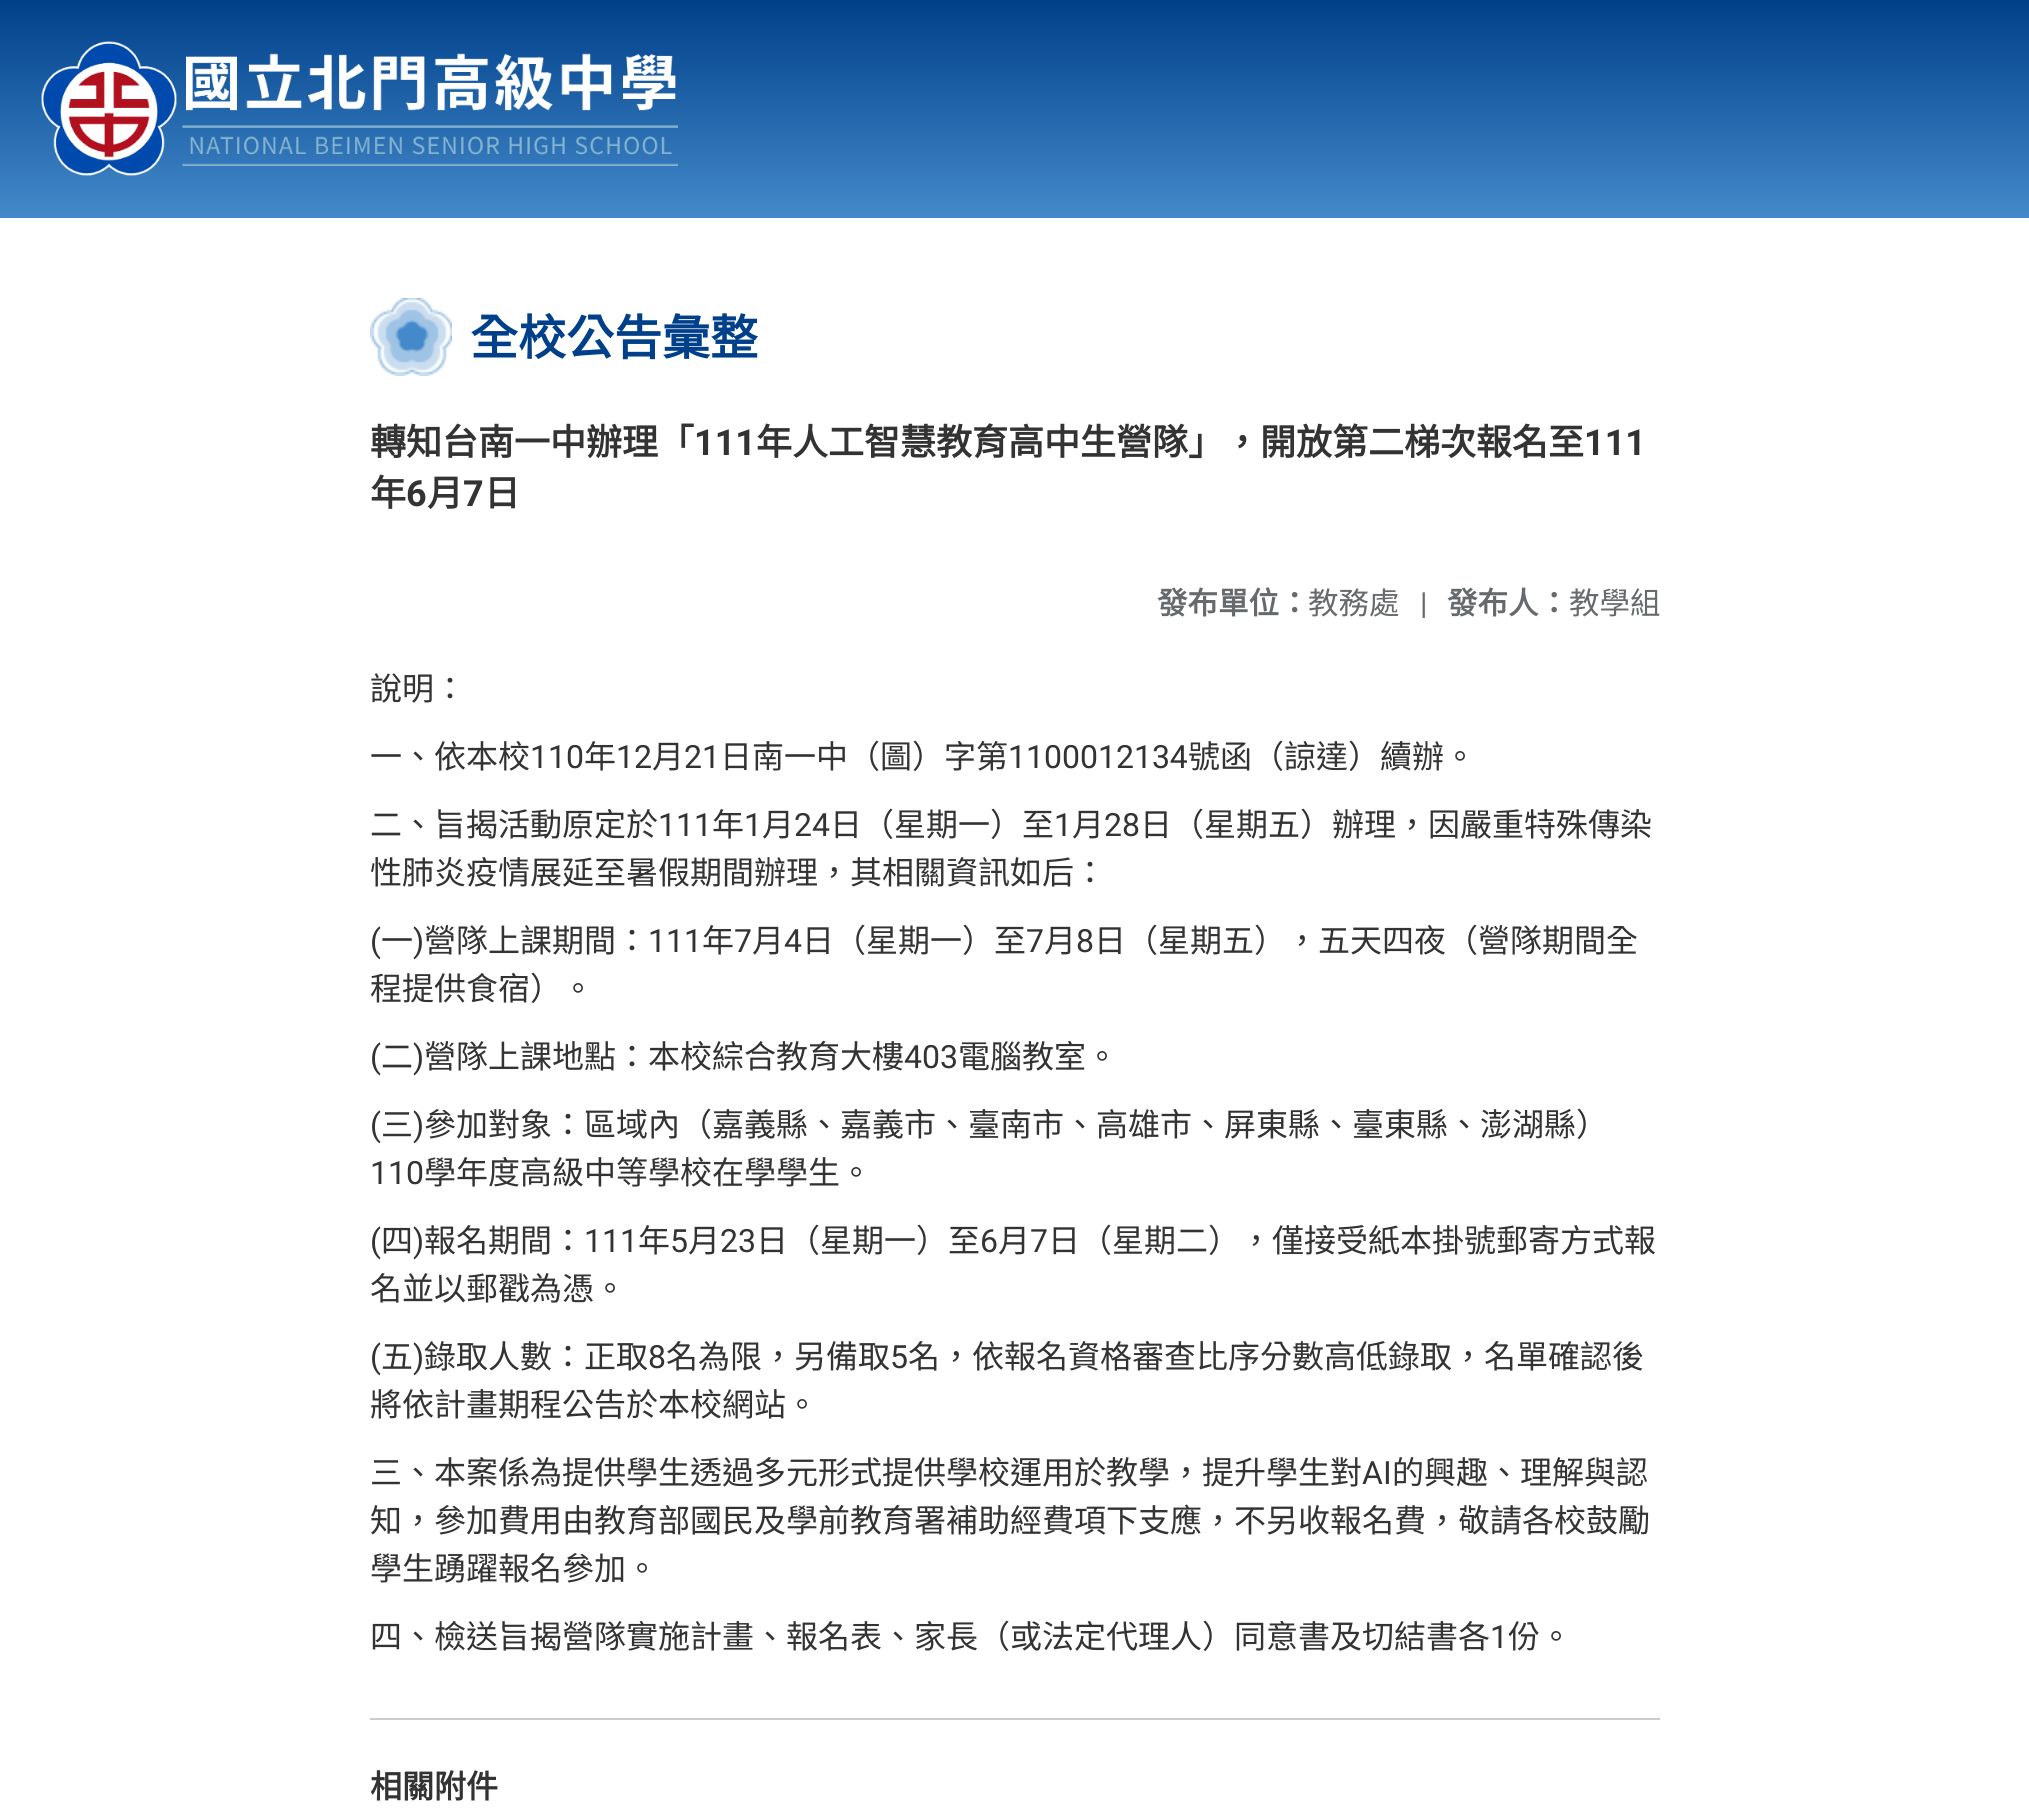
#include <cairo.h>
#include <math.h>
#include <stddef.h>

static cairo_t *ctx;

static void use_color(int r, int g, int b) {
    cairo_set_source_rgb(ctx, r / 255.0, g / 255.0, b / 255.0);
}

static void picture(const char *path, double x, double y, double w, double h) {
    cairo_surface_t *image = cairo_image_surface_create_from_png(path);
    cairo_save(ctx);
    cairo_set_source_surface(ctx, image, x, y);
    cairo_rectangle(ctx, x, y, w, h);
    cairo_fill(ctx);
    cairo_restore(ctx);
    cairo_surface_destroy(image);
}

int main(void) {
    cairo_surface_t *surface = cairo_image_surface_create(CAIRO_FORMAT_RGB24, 2029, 1813);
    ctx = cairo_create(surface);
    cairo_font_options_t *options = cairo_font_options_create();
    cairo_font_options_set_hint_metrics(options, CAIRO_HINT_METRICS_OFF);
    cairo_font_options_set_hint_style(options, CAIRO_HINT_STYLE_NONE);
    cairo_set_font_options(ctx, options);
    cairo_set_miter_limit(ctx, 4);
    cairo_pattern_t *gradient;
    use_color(255, 255, 255);
    cairo_paint(ctx);
    gradient = cairo_pattern_create_linear(1015, 0, 1015, 218);
    cairo_pattern_add_color_stop_rgba(gradient, 0, 0, 0.251, 0.541, 1);
    cairo_pattern_add_color_stop_rgba(gradient, 1, 0.267, 0.541, 0.792, 1);
    cairo_set_source(ctx, gradient);
    cairo_pattern_destroy(gradient);
    cairo_rectangle(ctx, 0, 0, 2029, 218);
    cairo_fill(ctx);
    picture("img1.png", 41, 41, 637, 135);
    picture("img2.png", 370, 298, 82, 78);
    cairo_select_font_face(ctx, "Noto Sans CJK TC", CAIRO_FONT_SLANT_NORMAL, CAIRO_FONT_WEIGHT_BOLD);
    cairo_set_font_size(ctx, 48);
    use_color(0, 64, 139);
    cairo_move_to(ctx, 470, 355);
    cairo_show_text(ctx, "全校公告彙整");
    cairo_set_font_size(ctx, 36);
    use_color(51, 51, 51);
    cairo_move_to(ctx, 370, 455);
    cairo_show_text(ctx, "轉知台南一中辦理「");
    cairo_select_font_face(ctx, "Roboto", CAIRO_FONT_SLANT_NORMAL, CAIRO_FONT_WEIGHT_BOLD);
    cairo_move_to(ctx, 694, 455);
    cairo_show_text(ctx, "111");
    cairo_select_font_face(ctx, "Noto Sans CJK TC", CAIRO_FONT_SLANT_NORMAL, CAIRO_FONT_WEIGHT_BOLD);
    cairo_move_to(ctx, 756, 455);
    cairo_show_text(ctx, "年人工智慧教育高中生營隊」，開放第二梯次報名至");
    cairo_select_font_face(ctx, "Roboto", CAIRO_FONT_SLANT_NORMAL, CAIRO_FONT_WEIGHT_BOLD);
    cairo_move_to(ctx, 1584, 455);
    cairo_show_text(ctx, "111");
    cairo_select_font_face(ctx, "Noto Sans CJK TC", CAIRO_FONT_SLANT_NORMAL, CAIRO_FONT_WEIGHT_BOLD);
    cairo_move_to(ctx, 370, 506);
    cairo_show_text(ctx, "年");
    cairo_select_font_face(ctx, "Roboto", CAIRO_FONT_SLANT_NORMAL, CAIRO_FONT_WEIGHT_BOLD);
    cairo_move_to(ctx, 406, 506);
    cairo_show_text(ctx, "6");
    cairo_select_font_face(ctx, "Noto Sans CJK TC", CAIRO_FONT_SLANT_NORMAL, CAIRO_FONT_WEIGHT_BOLD);
    cairo_move_to(ctx, 427, 506);
    cairo_show_text(ctx, "月");
    cairo_select_font_face(ctx, "Roboto", CAIRO_FONT_SLANT_NORMAL, CAIRO_FONT_WEIGHT_BOLD);
    cairo_move_to(ctx, 463, 506);
    cairo_show_text(ctx, "7");
    cairo_select_font_face(ctx, "Noto Sans CJK TC", CAIRO_FONT_SLANT_NORMAL, CAIRO_FONT_WEIGHT_BOLD);
    cairo_move_to(ctx, 484, 506);
    cairo_show_text(ctx, "日");
    cairo_set_font_size(ctx, 30.5);
    use_color(103, 106, 108);
    cairo_move_to(ctx, 1157, 614);
    cairo_show_text(ctx, "發布單位：");
    cairo_select_font_face(ctx, "Noto Sans CJK TC", CAIRO_FONT_SLANT_NORMAL, CAIRO_FONT_WEIGHT_NORMAL);
    cairo_move_to(ctx, 1308, 614);
    cairo_show_text(ctx, "教務處");
    cairo_select_font_face(ctx, "Roboto", CAIRO_FONT_SLANT_NORMAL, CAIRO_FONT_WEIGHT_NORMAL);
    cairo_move_to(ctx, 1420, 614);
    cairo_show_text(ctx, "|");
    cairo_select_font_face(ctx, "Noto Sans CJK TC", CAIRO_FONT_SLANT_NORMAL, CAIRO_FONT_WEIGHT_BOLD);
    cairo_move_to(ctx, 1447, 614);
    cairo_show_text(ctx, "發布人：");
    cairo_select_font_face(ctx, "Noto Sans CJK TC", CAIRO_FONT_SLANT_NORMAL, CAIRO_FONT_WEIGHT_NORMAL);
    cairo_move_to(ctx, 1569, 614);
    cairo_show_text(ctx, "教學組");
    cairo_set_font_size(ctx, 32);
    use_color(51, 51, 51);
    cairo_move_to(ctx, 370, 700);
    cairo_show_text(ctx, "說明：");
    cairo_move_to(ctx, 370, 768);
    cairo_show_text(ctx, "一、依本校");
    cairo_select_font_face(ctx, "Roboto", CAIRO_FONT_SLANT_NORMAL, CAIRO_FONT_WEIGHT_NORMAL);
    cairo_move_to(ctx, 530, 768);
    cairo_show_text(ctx, "110");
    cairo_select_font_face(ctx, "Noto Sans CJK TC", CAIRO_FONT_SLANT_NORMAL, CAIRO_FONT_WEIGHT_NORMAL);
    cairo_move_to(ctx, 584, 768);
    cairo_show_text(ctx, "年");
    cairo_select_font_face(ctx, "Roboto", CAIRO_FONT_SLANT_NORMAL, CAIRO_FONT_WEIGHT_NORMAL);
    cairo_move_to(ctx, 616, 768);
    cairo_show_text(ctx, "12");
    cairo_select_font_face(ctx, "Noto Sans CJK TC", CAIRO_FONT_SLANT_NORMAL, CAIRO_FONT_WEIGHT_NORMAL);
    cairo_move_to(ctx, 652, 768);
    cairo_show_text(ctx, "月");
    cairo_select_font_face(ctx, "Roboto", CAIRO_FONT_SLANT_NORMAL, CAIRO_FONT_WEIGHT_NORMAL);
    cairo_move_to(ctx, 684, 768);
    cairo_show_text(ctx, "21");
    cairo_select_font_face(ctx, "Noto Sans CJK TC", CAIRO_FONT_SLANT_NORMAL, CAIRO_FONT_WEIGHT_NORMAL);
    cairo_move_to(ctx, 720, 768);
    cairo_show_text(ctx, "日南一中（圖）字第");
    cairo_select_font_face(ctx, "Roboto", CAIRO_FONT_SLANT_NORMAL, CAIRO_FONT_WEIGHT_NORMAL);
    cairo_move_to(ctx, 1008, 768);
    cairo_show_text(ctx, "1100012134");
    cairo_select_font_face(ctx, "Noto Sans CJK TC", CAIRO_FONT_SLANT_NORMAL, CAIRO_FONT_WEIGHT_NORMAL);
    cairo_move_to(ctx, 1188, 768);
    cairo_show_text(ctx, "號函（諒達）續辦。");
    cairo_move_to(ctx, 370, 836);
    cairo_show_text(ctx, "二、旨揭活動原定於");
    cairo_select_font_face(ctx, "Roboto", CAIRO_FONT_SLANT_NORMAL, CAIRO_FONT_WEIGHT_NORMAL);
    cairo_move_to(ctx, 658, 836);
    cairo_show_text(ctx, "111");
    cairo_select_font_face(ctx, "Noto Sans CJK TC", CAIRO_FONT_SLANT_NORMAL, CAIRO_FONT_WEIGHT_NORMAL);
    cairo_move_to(ctx, 712, 836);
    cairo_show_text(ctx, "年");
    cairo_select_font_face(ctx, "Roboto", CAIRO_FONT_SLANT_NORMAL, CAIRO_FONT_WEIGHT_NORMAL);
    cairo_move_to(ctx, 744, 836);
    cairo_show_text(ctx, "1");
    cairo_select_font_face(ctx, "Noto Sans CJK TC", CAIRO_FONT_SLANT_NORMAL, CAIRO_FONT_WEIGHT_NORMAL);
    cairo_move_to(ctx, 762, 836);
    cairo_show_text(ctx, "月");
    cairo_select_font_face(ctx, "Roboto", CAIRO_FONT_SLANT_NORMAL, CAIRO_FONT_WEIGHT_NORMAL);
    cairo_move_to(ctx, 794, 836);
    cairo_show_text(ctx, "24");
    cairo_select_font_face(ctx, "Noto Sans CJK TC", CAIRO_FONT_SLANT_NORMAL, CAIRO_FONT_WEIGHT_NORMAL);
    cairo_move_to(ctx, 830, 836);
    cairo_show_text(ctx, "日（星期一）至");
    cairo_select_font_face(ctx, "Roboto", CAIRO_FONT_SLANT_NORMAL, CAIRO_FONT_WEIGHT_NORMAL);
    cairo_move_to(ctx, 1054, 836);
    cairo_show_text(ctx, "1");
    cairo_select_font_face(ctx, "Noto Sans CJK TC", CAIRO_FONT_SLANT_NORMAL, CAIRO_FONT_WEIGHT_NORMAL);
    cairo_move_to(ctx, 1072, 836);
    cairo_show_text(ctx, "月");
    cairo_select_font_face(ctx, "Roboto", CAIRO_FONT_SLANT_NORMAL, CAIRO_FONT_WEIGHT_NORMAL);
    cairo_move_to(ctx, 1104, 836);
    cairo_show_text(ctx, "28");
    cairo_select_font_face(ctx, "Noto Sans CJK TC", CAIRO_FONT_SLANT_NORMAL, CAIRO_FONT_WEIGHT_NORMAL);
    cairo_move_to(ctx, 1140, 836);
    cairo_show_text(ctx, "日（星期五）辦理，因嚴重特殊傳染");
    cairo_move_to(ctx, 370, 884);
    cairo_show_text(ctx, "性肺炎疫情展延至暑假期間辦理，其相關資訊如后：");
    cairo_select_font_face(ctx, "Roboto", CAIRO_FONT_SLANT_NORMAL, CAIRO_FONT_WEIGHT_NORMAL);
    cairo_move_to(ctx, 370, 952);
    cairo_show_text(ctx, "(");
    cairo_select_font_face(ctx, "Noto Sans CJK TC", CAIRO_FONT_SLANT_NORMAL, CAIRO_FONT_WEIGHT_NORMAL);
    cairo_move_to(ctx, 381, 952);
    cairo_show_text(ctx, "一");
    cairo_select_font_face(ctx, "Roboto", CAIRO_FONT_SLANT_NORMAL, CAIRO_FONT_WEIGHT_NORMAL);
    cairo_move_to(ctx, 413, 952);
    cairo_show_text(ctx, ")");
    cairo_select_font_face(ctx, "Noto Sans CJK TC", CAIRO_FONT_SLANT_NORMAL, CAIRO_FONT_WEIGHT_NORMAL);
    cairo_move_to(ctx, 424, 952);
    cairo_show_text(ctx, "營隊上課期間：");
    cairo_select_font_face(ctx, "Roboto", CAIRO_FONT_SLANT_NORMAL, CAIRO_FONT_WEIGHT_NORMAL);
    cairo_move_to(ctx, 648, 952);
    cairo_show_text(ctx, "111");
    cairo_select_font_face(ctx, "Noto Sans CJK TC", CAIRO_FONT_SLANT_NORMAL, CAIRO_FONT_WEIGHT_NORMAL);
    cairo_move_to(ctx, 702, 952);
    cairo_show_text(ctx, "年");
    cairo_select_font_face(ctx, "Roboto", CAIRO_FONT_SLANT_NORMAL, CAIRO_FONT_WEIGHT_NORMAL);
    cairo_move_to(ctx, 734, 952);
    cairo_show_text(ctx, "7");
    cairo_select_font_face(ctx, "Noto Sans CJK TC", CAIRO_FONT_SLANT_NORMAL, CAIRO_FONT_WEIGHT_NORMAL);
    cairo_move_to(ctx, 752, 952);
    cairo_show_text(ctx, "月");
    cairo_select_font_face(ctx, "Roboto", CAIRO_FONT_SLANT_NORMAL, CAIRO_FONT_WEIGHT_NORMAL);
    cairo_move_to(ctx, 784, 952);
    cairo_show_text(ctx, "4");
    cairo_select_font_face(ctx, "Noto Sans CJK TC", CAIRO_FONT_SLANT_NORMAL, CAIRO_FONT_WEIGHT_NORMAL);
    cairo_move_to(ctx, 802, 952);
    cairo_show_text(ctx, "日（星期一）至");
    cairo_select_font_face(ctx, "Roboto", CAIRO_FONT_SLANT_NORMAL, CAIRO_FONT_WEIGHT_NORMAL);
    cairo_move_to(ctx, 1026, 952);
    cairo_show_text(ctx, "7");
    cairo_select_font_face(ctx, "Noto Sans CJK TC", CAIRO_FONT_SLANT_NORMAL, CAIRO_FONT_WEIGHT_NORMAL);
    cairo_move_to(ctx, 1044, 952);
    cairo_show_text(ctx, "月");
    cairo_select_font_face(ctx, "Roboto", CAIRO_FONT_SLANT_NORMAL, CAIRO_FONT_WEIGHT_NORMAL);
    cairo_move_to(ctx, 1076, 952);
    cairo_show_text(ctx, "8");
    cairo_select_font_face(ctx, "Noto Sans CJK TC", CAIRO_FONT_SLANT_NORMAL, CAIRO_FONT_WEIGHT_NORMAL);
    cairo_move_to(ctx, 1094, 952);
    cairo_show_text(ctx, "日（星期五），五天四夜（營隊期間全");
    cairo_move_to(ctx, 370, 1000);
    cairo_show_text(ctx, "程提供食宿）。");
    cairo_select_font_face(ctx, "Roboto", CAIRO_FONT_SLANT_NORMAL, CAIRO_FONT_WEIGHT_NORMAL);
    cairo_move_to(ctx, 370, 1068);
    cairo_show_text(ctx, "(");
    cairo_select_font_face(ctx, "Noto Sans CJK TC", CAIRO_FONT_SLANT_NORMAL, CAIRO_FONT_WEIGHT_NORMAL);
    cairo_move_to(ctx, 381, 1068);
    cairo_show_text(ctx, "二");
    cairo_select_font_face(ctx, "Roboto", CAIRO_FONT_SLANT_NORMAL, CAIRO_FONT_WEIGHT_NORMAL);
    cairo_move_to(ctx, 413, 1068);
    cairo_show_text(ctx, ")");
    cairo_select_font_face(ctx, "Noto Sans CJK TC", CAIRO_FONT_SLANT_NORMAL, CAIRO_FONT_WEIGHT_NORMAL);
    cairo_move_to(ctx, 424, 1068);
    cairo_show_text(ctx, "營隊上課地點：本校綜合教育大樓");
    cairo_select_font_face(ctx, "Roboto", CAIRO_FONT_SLANT_NORMAL, CAIRO_FONT_WEIGHT_NORMAL);
    cairo_move_to(ctx, 904, 1068);
    cairo_show_text(ctx, "403");
    cairo_select_font_face(ctx, "Noto Sans CJK TC", CAIRO_FONT_SLANT_NORMAL, CAIRO_FONT_WEIGHT_NORMAL);
    cairo_move_to(ctx, 958, 1068);
    cairo_show_text(ctx, "電腦教室。");
    cairo_select_font_face(ctx, "Roboto", CAIRO_FONT_SLANT_NORMAL, CAIRO_FONT_WEIGHT_NORMAL);
    cairo_move_to(ctx, 370, 1136);
    cairo_show_text(ctx, "(");
    cairo_select_font_face(ctx, "Noto Sans CJK TC", CAIRO_FONT_SLANT_NORMAL, CAIRO_FONT_WEIGHT_NORMAL);
    cairo_move_to(ctx, 381, 1136);
    cairo_show_text(ctx, "三");
    cairo_select_font_face(ctx, "Roboto", CAIRO_FONT_SLANT_NORMAL, CAIRO_FONT_WEIGHT_NORMAL);
    cairo_move_to(ctx, 413, 1136);
    cairo_show_text(ctx, ")");
    cairo_select_font_face(ctx, "Noto Sans CJK TC", CAIRO_FONT_SLANT_NORMAL, CAIRO_FONT_WEIGHT_NORMAL);
    cairo_move_to(ctx, 424, 1136);
    cairo_show_text(ctx, "參加對象：區域內（嘉義縣、嘉義市、臺南市、高雄市、屏東縣、臺東縣、澎湖縣）");
    cairo_select_font_face(ctx, "Roboto", CAIRO_FONT_SLANT_NORMAL, CAIRO_FONT_WEIGHT_NORMAL);
    cairo_move_to(ctx, 370, 1184);
    cairo_show_text(ctx, "110");
    cairo_select_font_face(ctx, "Noto Sans CJK TC", CAIRO_FONT_SLANT_NORMAL, CAIRO_FONT_WEIGHT_NORMAL);
    cairo_move_to(ctx, 424, 1184);
    cairo_show_text(ctx, "學年度高級中等學校在學學生。");
    cairo_select_font_face(ctx, "Roboto", CAIRO_FONT_SLANT_NORMAL, CAIRO_FONT_WEIGHT_NORMAL);
    cairo_move_to(ctx, 370, 1252);
    cairo_show_text(ctx, "(");
    cairo_select_font_face(ctx, "Noto Sans CJK TC", CAIRO_FONT_SLANT_NORMAL, CAIRO_FONT_WEIGHT_NORMAL);
    cairo_move_to(ctx, 381, 1252);
    cairo_show_text(ctx, "四");
    cairo_select_font_face(ctx, "Roboto", CAIRO_FONT_SLANT_NORMAL, CAIRO_FONT_WEIGHT_NORMAL);
    cairo_move_to(ctx, 413, 1252);
    cairo_show_text(ctx, ")");
    cairo_select_font_face(ctx, "Noto Sans CJK TC", CAIRO_FONT_SLANT_NORMAL, CAIRO_FONT_WEIGHT_NORMAL);
    cairo_move_to(ctx, 424, 1252);
    cairo_show_text(ctx, "報名期間：");
    cairo_select_font_face(ctx, "Roboto", CAIRO_FONT_SLANT_NORMAL, CAIRO_FONT_WEIGHT_NORMAL);
    cairo_move_to(ctx, 584, 1252);
    cairo_show_text(ctx, "111");
    cairo_select_font_face(ctx, "Noto Sans CJK TC", CAIRO_FONT_SLANT_NORMAL, CAIRO_FONT_WEIGHT_NORMAL);
    cairo_move_to(ctx, 638, 1252);
    cairo_show_text(ctx, "年");
    cairo_select_font_face(ctx, "Roboto", CAIRO_FONT_SLANT_NORMAL, CAIRO_FONT_WEIGHT_NORMAL);
    cairo_move_to(ctx, 670, 1252);
    cairo_show_text(ctx, "5");
    cairo_select_font_face(ctx, "Noto Sans CJK TC", CAIRO_FONT_SLANT_NORMAL, CAIRO_FONT_WEIGHT_NORMAL);
    cairo_move_to(ctx, 688, 1252);
    cairo_show_text(ctx, "月");
    cairo_select_font_face(ctx, "Roboto", CAIRO_FONT_SLANT_NORMAL, CAIRO_FONT_WEIGHT_NORMAL);
    cairo_move_to(ctx, 720, 1252);
    cairo_show_text(ctx, "23");
    cairo_select_font_face(ctx, "Noto Sans CJK TC", CAIRO_FONT_SLANT_NORMAL, CAIRO_FONT_WEIGHT_NORMAL);
    cairo_move_to(ctx, 756, 1252);
    cairo_show_text(ctx, "日（星期一）至");
    cairo_select_font_face(ctx, "Roboto", CAIRO_FONT_SLANT_NORMAL, CAIRO_FONT_WEIGHT_NORMAL);
    cairo_move_to(ctx, 980, 1252);
    cairo_show_text(ctx, "6");
    cairo_select_font_face(ctx, "Noto Sans CJK TC", CAIRO_FONT_SLANT_NORMAL, CAIRO_FONT_WEIGHT_NORMAL);
    cairo_move_to(ctx, 998, 1252);
    cairo_show_text(ctx, "月");
    cairo_select_font_face(ctx, "Roboto", CAIRO_FONT_SLANT_NORMAL, CAIRO_FONT_WEIGHT_NORMAL);
    cairo_move_to(ctx, 1030, 1252);
    cairo_show_text(ctx, "7");
    cairo_select_font_face(ctx, "Noto Sans CJK TC", CAIRO_FONT_SLANT_NORMAL, CAIRO_FONT_WEIGHT_NORMAL);
    cairo_move_to(ctx, 1048, 1252);
    cairo_show_text(ctx, "日（星期二），僅接受紙本掛號郵寄方式報");
    cairo_move_to(ctx, 370, 1300);
    cairo_show_text(ctx, "名並以郵戳為憑。");
    cairo_select_font_face(ctx, "Roboto", CAIRO_FONT_SLANT_NORMAL, CAIRO_FONT_WEIGHT_NORMAL);
    cairo_move_to(ctx, 370, 1368);
    cairo_show_text(ctx, "(");
    cairo_select_font_face(ctx, "Noto Sans CJK TC", CAIRO_FONT_SLANT_NORMAL, CAIRO_FONT_WEIGHT_NORMAL);
    cairo_move_to(ctx, 381, 1368);
    cairo_show_text(ctx, "五");
    cairo_select_font_face(ctx, "Roboto", CAIRO_FONT_SLANT_NORMAL, CAIRO_FONT_WEIGHT_NORMAL);
    cairo_move_to(ctx, 413, 1368);
    cairo_show_text(ctx, ")");
    cairo_select_font_face(ctx, "Noto Sans CJK TC", CAIRO_FONT_SLANT_NORMAL, CAIRO_FONT_WEIGHT_NORMAL);
    cairo_move_to(ctx, 424, 1368);
    cairo_show_text(ctx, "錄取人數：正取");
    cairo_select_font_face(ctx, "Roboto", CAIRO_FONT_SLANT_NORMAL, CAIRO_FONT_WEIGHT_NORMAL);
    cairo_move_to(ctx, 648, 1368);
    cairo_show_text(ctx, "8");
    cairo_select_font_face(ctx, "Noto Sans CJK TC", CAIRO_FONT_SLANT_NORMAL, CAIRO_FONT_WEIGHT_NORMAL);
    cairo_move_to(ctx, 666, 1368);
    cairo_show_text(ctx, "名為限，另備取");
    cairo_select_font_face(ctx, "Roboto", CAIRO_FONT_SLANT_NORMAL, CAIRO_FONT_WEIGHT_NORMAL);
    cairo_move_to(ctx, 890, 1368);
    cairo_show_text(ctx, "5");
    cairo_select_font_face(ctx, "Noto Sans CJK TC", CAIRO_FONT_SLANT_NORMAL, CAIRO_FONT_WEIGHT_NORMAL);
    cairo_move_to(ctx, 908, 1368);
    cairo_show_text(ctx, "名，依報名資格審查比序分數高低錄取，名單確認後");
    cairo_move_to(ctx, 370, 1416);
    cairo_show_text(ctx, "將依計畫期程公告於本校網站。");
    cairo_move_to(ctx, 370, 1484);
    cairo_show_text(ctx, "三、本案係為提供學生透過多元形式提供學校運用於教學，提升學生對");
    cairo_select_font_face(ctx, "Roboto", CAIRO_FONT_SLANT_NORMAL, CAIRO_FONT_WEIGHT_NORMAL);
    cairo_move_to(ctx, 1362, 1484);
    cairo_show_text(ctx, "AI");
    cairo_select_font_face(ctx, "Noto Sans CJK TC", CAIRO_FONT_SLANT_NORMAL, CAIRO_FONT_WEIGHT_NORMAL);
    cairo_move_to(ctx, 1392, 1484);
    cairo_show_text(ctx, "的興趣、理解與認");
    cairo_move_to(ctx, 370, 1532);
    cairo_show_text(ctx, "知，參加費用由教育部國民及學前教育署補助經費項下支應，不另收報名費，敬請各校鼓勵");
    cairo_move_to(ctx, 370, 1580);
    cairo_show_text(ctx, "學生踴躍報名參加。");
    cairo_move_to(ctx, 370, 1648);
    cairo_show_text(ctx, "四、檢送旨揭營隊實施計畫、報名表、家長（或法定代理人）同意書及切結書各");
    cairo_select_font_face(ctx, "Roboto", CAIRO_FONT_SLANT_NORMAL, CAIRO_FONT_WEIGHT_NORMAL);
    cairo_move_to(ctx, 1490, 1648);
    cairo_show_text(ctx, "1");
    cairo_select_font_face(ctx, "Noto Sans CJK TC", CAIRO_FONT_SLANT_NORMAL, CAIRO_FONT_WEIGHT_NORMAL);
    cairo_move_to(ctx, 1508, 1648);
    cairo_show_text(ctx, "份。");
    use_color(204, 204, 204);
    cairo_rectangle(ctx, 370, 1718, 1290, 2);
    cairo_fill(ctx);
    cairo_select_font_face(ctx, "Noto Sans CJK TC", CAIRO_FONT_SLANT_NORMAL, CAIRO_FONT_WEIGHT_BOLD);
    use_color(51, 51, 51);
    cairo_move_to(ctx, 370, 1798);
    cairo_show_text(ctx, "相關附件");
    cairo_surface_write_to_png(surface, "result.png");
    cairo_font_options_destroy(options);
    cairo_destroy(ctx);
    cairo_surface_destroy(surface);
    return 0;
}
